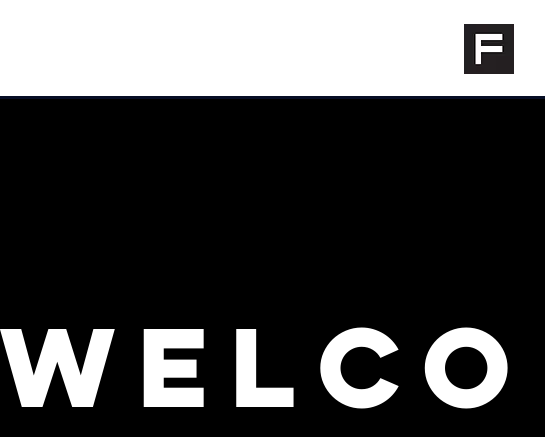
#include <cairo.h>
#include <math.h>
#include <stddef.h>

static cairo_t *ctx;

static void use_color(int r, int g, int b) {
    cairo_set_source_rgb(ctx, r / 255.0, g / 255.0, b / 255.0);
}

static void picture(const char *path, double x, double y, double w, double h) {
    cairo_surface_t *image = cairo_image_surface_create_from_png(path);
    cairo_save(ctx);
    cairo_set_source_surface(ctx, image, x, y);
    cairo_rectangle(ctx, x, y, w, h);
    cairo_fill(ctx);
    cairo_restore(ctx);
    cairo_surface_destroy(image);
}

int main(void) {
    cairo_surface_t *surface = cairo_image_surface_create(CAIRO_FORMAT_RGB24, 545, 437);
    ctx = cairo_create(surface);
    cairo_font_options_t *options = cairo_font_options_create();
    cairo_font_options_set_hint_metrics(options, CAIRO_HINT_METRICS_OFF);
    cairo_font_options_set_hint_style(options, CAIRO_HINT_STYLE_NONE);
    cairo_set_font_options(ctx, options);
    cairo_set_miter_limit(ctx, 4);
    use_color(0, 0, 0);
    cairo_paint(ctx);
    use_color(255, 255, 255);
    cairo_rectangle(ctx, 0, 0, 545, 96);
    cairo_fill(ctx);
    use_color(6, 14, 37);
    cairo_rectangle(ctx, 0, 96, 545, 3);
    cairo_fill(ctx);
    picture("img1.png", 464, 24, 50, 50);
    cairo_select_font_face(ctx, "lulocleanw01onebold", CAIRO_FONT_SLANT_NORMAL, CAIRO_FONT_WEIGHT_BOLD);
    cairo_set_font_size(ctx, 100);
    use_color(255, 255, 255);
    cairo_move_to(ctx, 0, 407);
    cairo_show_text(ctx, "Welco");
    cairo_surface_write_to_png(surface, "result.png");
    cairo_font_options_destroy(options);
    cairo_destroy(ctx);
    cairo_surface_destroy(surface);
    return 0;
}
